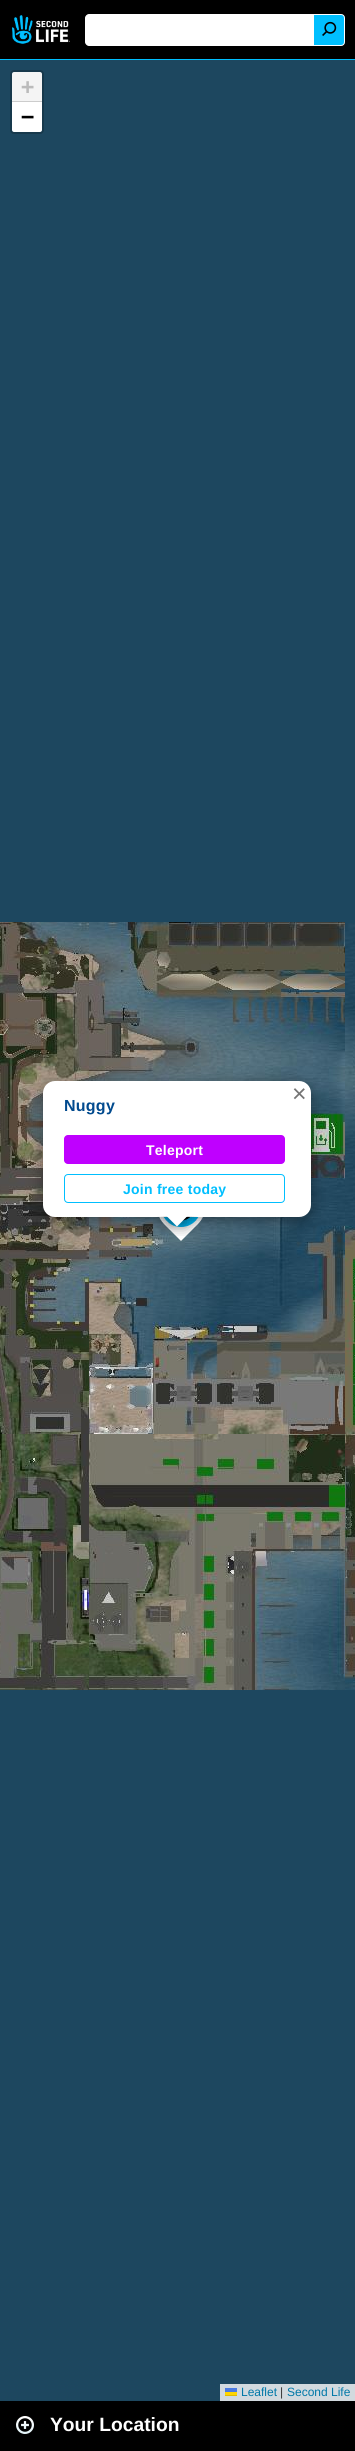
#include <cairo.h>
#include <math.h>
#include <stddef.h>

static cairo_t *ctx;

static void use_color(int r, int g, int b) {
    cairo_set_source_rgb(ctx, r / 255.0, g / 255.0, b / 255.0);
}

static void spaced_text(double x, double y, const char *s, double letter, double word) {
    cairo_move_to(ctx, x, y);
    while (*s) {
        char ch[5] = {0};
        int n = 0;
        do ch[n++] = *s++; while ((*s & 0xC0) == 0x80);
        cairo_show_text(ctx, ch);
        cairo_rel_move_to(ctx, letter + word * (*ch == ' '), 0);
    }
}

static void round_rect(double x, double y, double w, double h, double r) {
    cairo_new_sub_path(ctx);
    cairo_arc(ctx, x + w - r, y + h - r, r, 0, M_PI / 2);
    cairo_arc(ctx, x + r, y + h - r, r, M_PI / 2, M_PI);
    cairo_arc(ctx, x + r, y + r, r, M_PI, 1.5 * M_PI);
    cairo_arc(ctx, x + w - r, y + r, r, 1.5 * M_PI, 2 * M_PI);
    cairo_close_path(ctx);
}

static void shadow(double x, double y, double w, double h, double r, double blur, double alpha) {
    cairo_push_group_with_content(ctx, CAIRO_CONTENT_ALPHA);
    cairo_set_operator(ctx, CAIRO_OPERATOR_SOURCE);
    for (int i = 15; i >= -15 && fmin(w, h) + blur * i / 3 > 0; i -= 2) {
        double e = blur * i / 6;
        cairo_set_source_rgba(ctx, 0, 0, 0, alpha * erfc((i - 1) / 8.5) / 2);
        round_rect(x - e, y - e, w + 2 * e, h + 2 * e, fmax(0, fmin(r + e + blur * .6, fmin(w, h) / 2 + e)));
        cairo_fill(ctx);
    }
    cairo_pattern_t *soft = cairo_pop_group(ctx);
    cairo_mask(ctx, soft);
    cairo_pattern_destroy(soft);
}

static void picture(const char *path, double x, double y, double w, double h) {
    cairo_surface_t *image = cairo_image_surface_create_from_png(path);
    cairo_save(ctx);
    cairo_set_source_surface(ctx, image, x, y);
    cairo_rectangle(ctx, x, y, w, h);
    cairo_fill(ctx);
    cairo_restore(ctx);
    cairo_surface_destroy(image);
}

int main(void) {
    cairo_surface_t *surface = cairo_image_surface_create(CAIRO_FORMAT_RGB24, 355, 2451);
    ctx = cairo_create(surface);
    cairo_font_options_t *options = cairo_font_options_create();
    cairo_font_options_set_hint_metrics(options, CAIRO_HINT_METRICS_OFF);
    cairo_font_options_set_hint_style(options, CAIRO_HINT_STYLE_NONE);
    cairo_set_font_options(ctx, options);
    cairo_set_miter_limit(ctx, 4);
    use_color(0, 0, 0);
    cairo_paint(ctx);
    use_color(0, 191, 255);
    cairo_rectangle(ctx, 0, 59, 355, 1);
    cairo_fill(ctx);
    picture("img1.png", 12, 15, 58, 29);
    use_color(255, 255, 255);
    cairo_new_path(ctx);
    cairo_move_to(ctx, 89, 14);
    cairo_line_to(ctx, 317, 14);
    cairo_line_to(ctx, 317, 46);
    cairo_line_to(ctx, 89, 46);
    cairo_curve_to(ctx, 87, 46, 85, 44, 85, 42);
    cairo_line_to(ctx, 85, 18);
    cairo_curve_to(ctx, 85, 16, 87, 14, 89, 14);
    cairo_close_path(ctx);
    cairo_fill(ctx);
    use_color(0, 191, 255);
    cairo_new_path(ctx);
    cairo_move_to(ctx, 313.5, 14.5);
    cairo_line_to(ctx, 341, 14.5);
    cairo_curve_to(ctx, 343, 14.5, 344.5, 16, 344.5, 18);
    cairo_line_to(ctx, 344.5, 42);
    cairo_curve_to(ctx, 344.5, 44, 343, 45.5, 341, 45.5);
    cairo_line_to(ctx, 313.5, 45.5);
    cairo_close_path(ctx);
    cairo_fill_preserve(ctx);
    use_color(255, 255, 255);
    cairo_set_line_width(ctx, 1);
    cairo_stroke(ctx);
    picture("img2.png", 322, 21, 15, 15);
    use_color(29, 71, 95);
    cairo_rectangle(ctx, 0, 60, 355, 2341);
    cairo_fill(ctx);
    round_rect(11, 71, 32, 62, 3);
    use_color(23, 57, 76);
    cairo_set_line_width(ctx, 2);
    cairo_stroke(ctx);
    use_color(244, 244, 244);
    cairo_new_path(ctx);
    cairo_move_to(ctx, 14, 72);
    cairo_line_to(ctx, 40, 72);
    cairo_curve_to(ctx, 41, 72, 42, 73, 42, 74);
    cairo_line_to(ctx, 42, 102);
    cairo_line_to(ctx, 12, 102);
    cairo_line_to(ctx, 12, 74);
    cairo_curve_to(ctx, 12, 73, 13, 72, 14, 72);
    cairo_close_path(ctx);
    cairo_fill(ctx);
    use_color(204, 204, 204);
    cairo_rectangle(ctx, 12, 101, 30, 1);
    cairo_fill(ctx);
    cairo_select_font_face(ctx, "DejaVu Sans Mono", CAIRO_FONT_SLANT_NORMAL, CAIRO_FONT_WEIGHT_BOLD);
    cairo_set_font_size(ctx, 22);
    use_color(187, 187, 187);
    cairo_move_to(ctx, 21, 94);
    cairo_show_text(ctx, "+");
    use_color(255, 255, 255);
    cairo_new_path(ctx);
    cairo_move_to(ctx, 12, 102);
    cairo_line_to(ctx, 42, 102);
    cairo_line_to(ctx, 42, 130);
    cairo_curve_to(ctx, 42, 131, 41, 132, 40, 132);
    cairo_line_to(ctx, 14, 132);
    cairo_curve_to(ctx, 13, 132, 12, 131, 12, 130);
    cairo_close_path(ctx);
    cairo_fill(ctx);
    use_color(0, 0, 0);
    cairo_move_to(ctx, 21, 124);
    cairo_show_text(ctx, "−");
    use_color(210, 218, 223);
    cairo_rectangle(ctx, 220, 2384, 135, 17);
    cairo_fill(ctx);
    cairo_select_font_face(ctx, "Liberation Sans", CAIRO_FONT_SLANT_NORMAL, CAIRO_FONT_WEIGHT_NORMAL);
    cairo_set_font_size(ctx, 12);
    use_color(0, 120, 168);
    cairo_move_to(ctx, 241, 2396);
    cairo_show_text(ctx, "Leaflet");
    use_color(76, 123, 225);
    cairo_rectangle(ctx, 225, 2388, 12, 4);
    cairo_fill(ctx);
    use_color(255, 213, 0);
    cairo_rectangle(ctx, 225, 2392, 12, 3);
    cairo_fill(ctx);
    use_color(224, 188, 0);
    cairo_rectangle(ctx, 225, 2395, 12, 1);
    cairo_fill(ctx);
    use_color(51, 51, 51);
    cairo_move_to(ctx, 280, 2396);
    cairo_show_text(ctx, "|");
    use_color(0, 120, 168);
    cairo_move_to(ctx, 287, 2396);
    cairo_show_text(ctx, "Second Life");
    picture("img3.png", 0, 922, 89, 256);
    picture("img4.png", 89, 922, 256, 256);
    picture("img5.png", 345, 923, 10, 255);
    picture("img6.png", 0, 1178, 89, 256);
    picture("img7.png", 89, 1178, 256, 256);
    picture("img8.png", 345, 1178, 10, 256);
    picture("img9.png", 0, 1434, 89, 256);
    picture("img10.png", 89, 1434, 256, 256);
    picture("img11.png", 345, 1434, 10, 256);
    picture("img12.png", 159, 1217, 44, 24);
    use_color(0, 0, 0);
    shadow(43, 1084, 268, 136, 12, 7, 0.4);
    use_color(255, 255, 255);
    round_rect(43, 1081, 268, 136, 12);
    cairo_fill(ctx);
    cairo_set_font_size(ctx, 25);
    use_color(117, 117, 117);
    cairo_move_to(ctx, 292, 1102);
    cairo_show_text(ctx, "×");
    cairo_select_font_face(ctx, "Liberation Sans", CAIRO_FONT_SLANT_NORMAL, CAIRO_FONT_WEIGHT_BOLD);
    cairo_set_font_size(ctx, 16);
    use_color(1, 74, 142);
    spaced_text(64, 1111, "Nuggy", 0.25, 0);
    use_color(191, 0, 255);
    round_rect(64, 1135, 221, 29, 4);
    cairo_fill(ctx);
    cairo_set_font_size(ctx, 14);
    use_color(255, 255, 255);
    spaced_text(146, 1155, "Teleport", 0.25, 0);
    round_rect(64.5, 1174.5, 220, 28, 3.5);
    use_color(0, 191, 255);
    cairo_set_line_width(ctx, 1);
    cairo_stroke(ctx);
    spaced_text(123, 1194, "Join free today", 0.25, 0);
    cairo_save(ctx);
    cairo_rectangle(ctx, 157, 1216, 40, 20);
    cairo_clip(ctx);
    use_color(0, 0, 0);
    shadow(169, 1209, 17, 17, 0, 7, 0.4);
    cairo_restore(ctx);
    cairo_save(ctx);
    cairo_rectangle(ctx, 157, 1216, 40, 20);
    cairo_clip(ctx);
    use_color(255, 255, 255);
    cairo_new_path(ctx);
    cairo_move_to(ctx, 177, 1202.5);
    cairo_line_to(ctx, 189, 1214.5);
    cairo_line_to(ctx, 177, 1226.5);
    cairo_line_to(ctx, 165, 1214.5);
    cairo_close_path(ctx);
    cairo_fill(ctx);
    cairo_restore(ctx);
    picture("img13.png", 16, 2416, 18, 18);
    cairo_set_font_size(ctx, 19.25);
    use_color(255, 255, 255);
    cairo_move_to(ctx, 50, 2431);
    cairo_show_text(ctx, "Your Location");
    cairo_surface_write_to_png(surface, "result.png");
    cairo_font_options_destroy(options);
    cairo_destroy(ctx);
    cairo_surface_destroy(surface);
    return 0;
}
